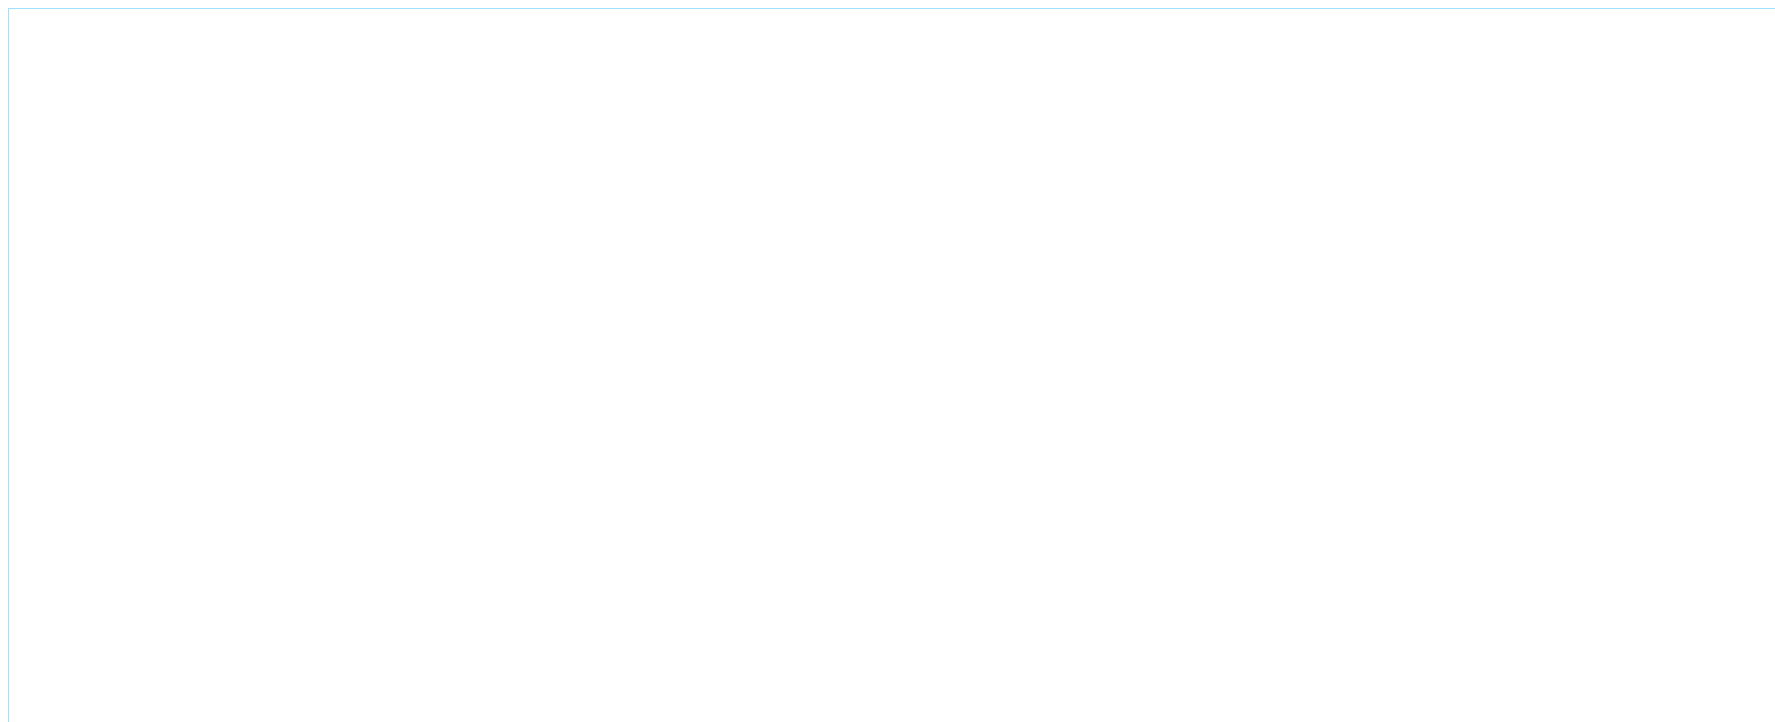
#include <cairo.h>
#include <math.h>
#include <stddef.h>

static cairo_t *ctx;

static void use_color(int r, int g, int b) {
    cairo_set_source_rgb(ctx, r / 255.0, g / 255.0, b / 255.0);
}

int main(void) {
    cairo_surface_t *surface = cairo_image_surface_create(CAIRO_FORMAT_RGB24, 1775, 722);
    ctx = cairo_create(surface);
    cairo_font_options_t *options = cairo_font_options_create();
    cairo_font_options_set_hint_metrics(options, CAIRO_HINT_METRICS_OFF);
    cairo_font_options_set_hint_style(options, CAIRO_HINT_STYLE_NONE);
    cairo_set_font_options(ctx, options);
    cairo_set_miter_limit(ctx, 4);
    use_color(255, 255, 255);
    cairo_paint(ctx);
    use_color(160, 224, 255);
    cairo_rectangle(ctx, 8, 8, 1767, 714);
    cairo_fill(ctx);
    use_color(255, 255, 255);
    cairo_rectangle(ctx, 9, 9, 1766, 713);
    cairo_fill(ctx);
    cairo_surface_write_to_png(surface, "result.png");
    cairo_font_options_destroy(options);
    cairo_destroy(ctx);
    cairo_surface_destroy(surface);
    return 0;
}
